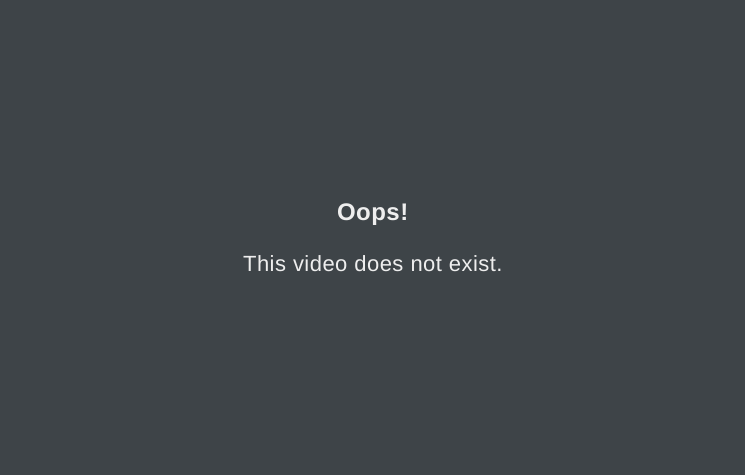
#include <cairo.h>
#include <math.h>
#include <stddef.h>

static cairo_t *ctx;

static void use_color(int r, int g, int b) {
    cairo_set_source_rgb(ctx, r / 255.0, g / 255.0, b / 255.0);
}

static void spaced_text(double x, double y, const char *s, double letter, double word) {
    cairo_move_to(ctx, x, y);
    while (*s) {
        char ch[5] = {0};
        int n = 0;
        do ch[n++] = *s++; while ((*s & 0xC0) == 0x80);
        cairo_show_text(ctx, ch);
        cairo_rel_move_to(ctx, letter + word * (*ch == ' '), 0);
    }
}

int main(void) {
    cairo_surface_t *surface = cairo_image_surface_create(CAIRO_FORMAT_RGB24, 745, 475);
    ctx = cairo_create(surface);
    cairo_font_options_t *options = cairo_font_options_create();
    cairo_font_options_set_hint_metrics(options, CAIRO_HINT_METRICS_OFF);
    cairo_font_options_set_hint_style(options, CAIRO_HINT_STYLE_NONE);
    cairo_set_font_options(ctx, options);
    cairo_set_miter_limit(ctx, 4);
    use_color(62, 68, 72);
    cairo_paint(ctx);
    cairo_select_font_face(ctx, "Liberation Sans", CAIRO_FONT_SLANT_NORMAL, CAIRO_FONT_WEIGHT_BOLD);
    cairo_set_font_size(ctx, 24);
    use_color(238, 238, 238);
    spaced_text(337, 220, "Oops!", 0.45, 0);
    cairo_select_font_face(ctx, "Liberation Sans", CAIRO_FONT_SLANT_NORMAL, CAIRO_FONT_WEIGHT_NORMAL);
    cairo_set_font_size(ctx, 22);
    spaced_text(243, 271, "This video does not exist.", 0.45, 0);
    cairo_surface_write_to_png(surface, "result.png");
    cairo_font_options_destroy(options);
    cairo_destroy(ctx);
    cairo_surface_destroy(surface);
    return 0;
}
